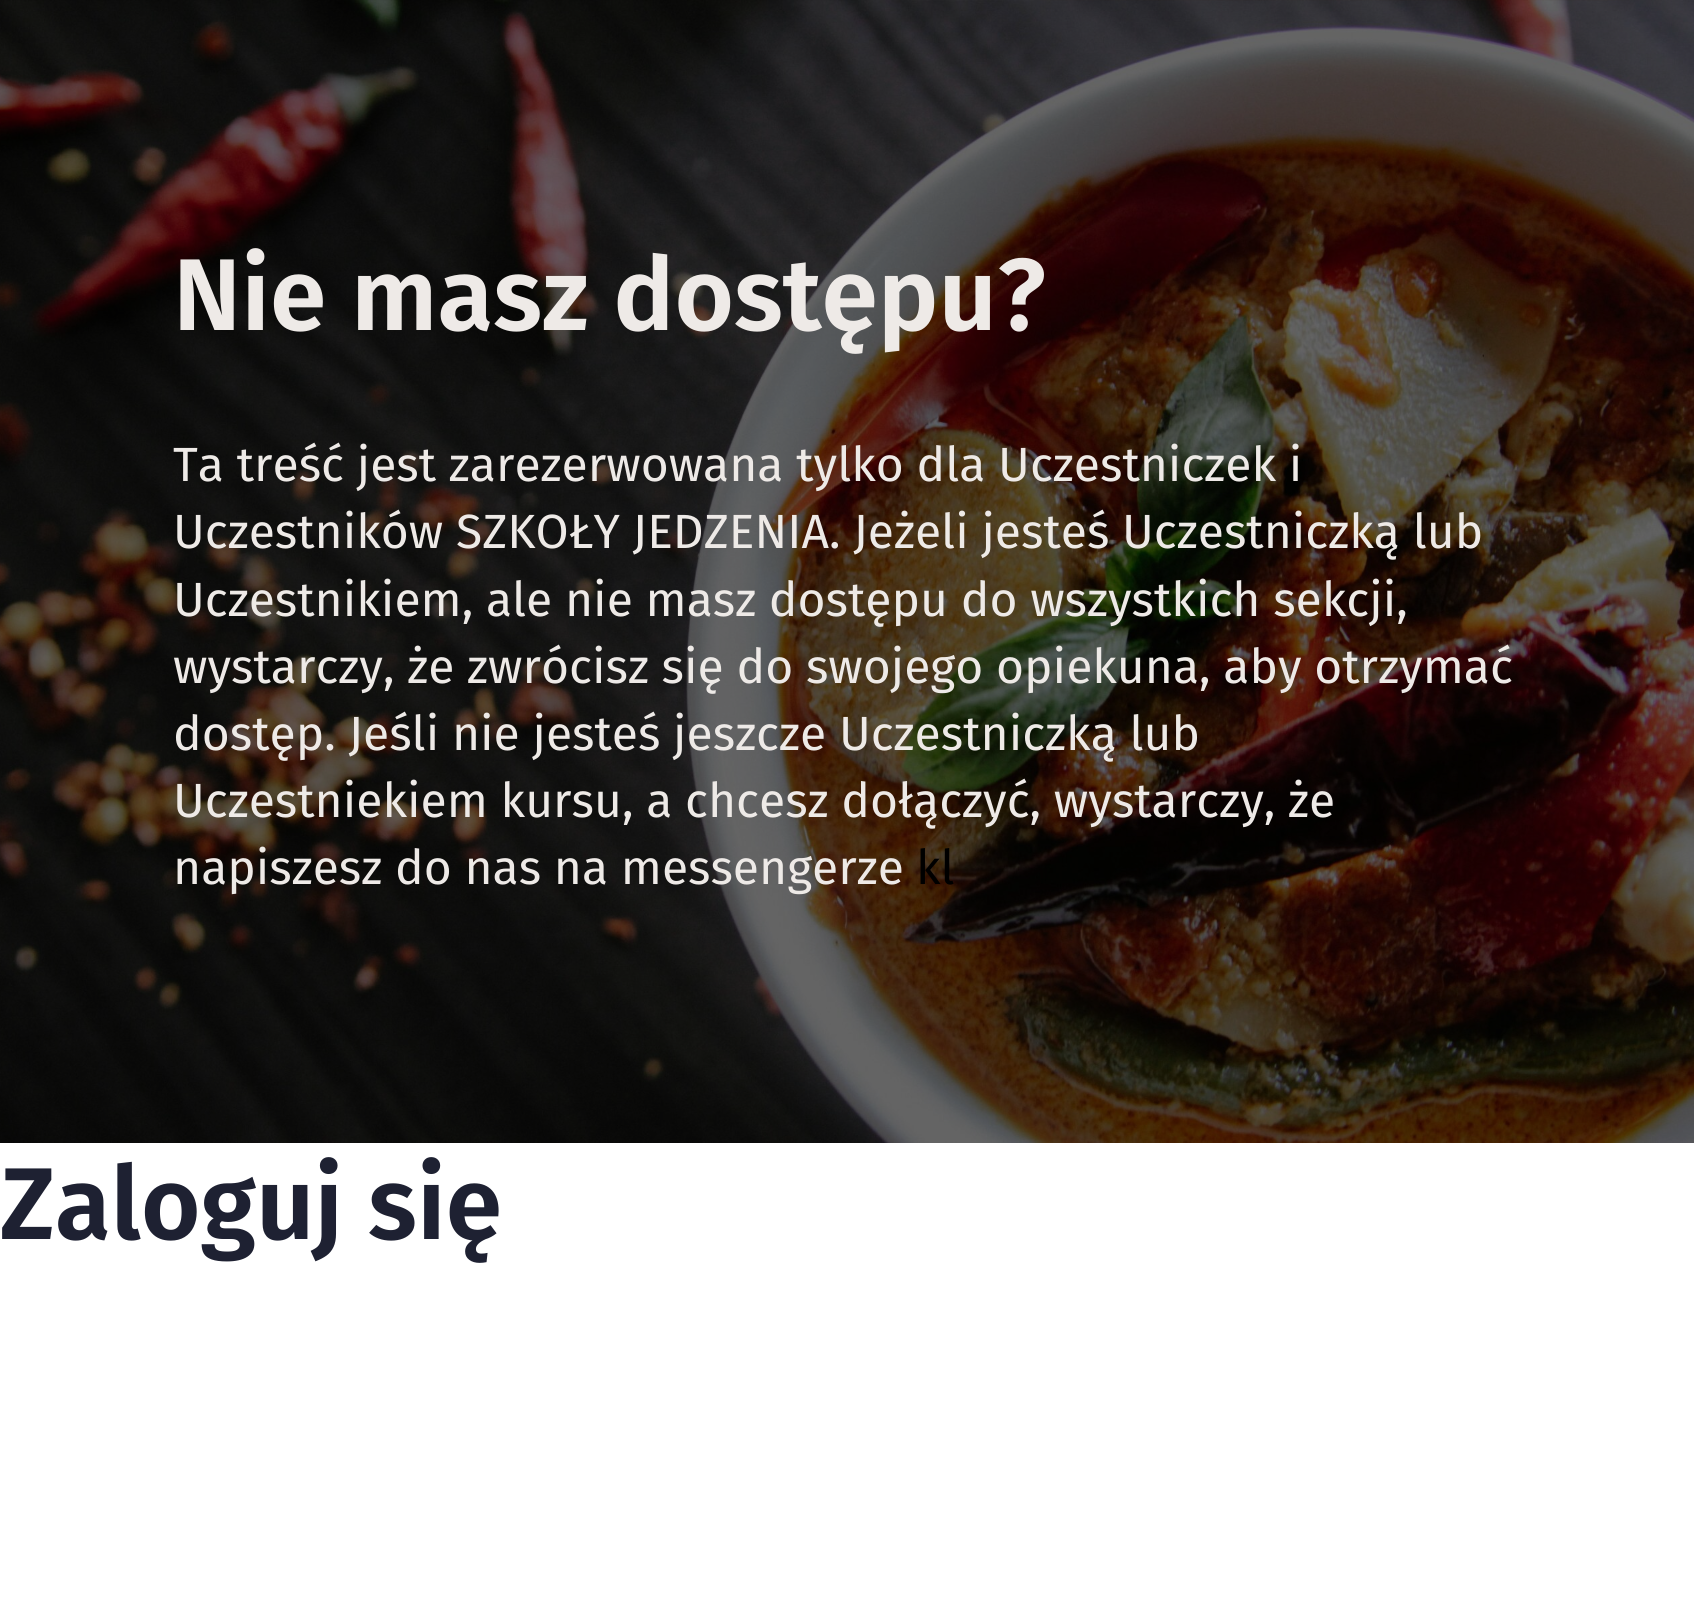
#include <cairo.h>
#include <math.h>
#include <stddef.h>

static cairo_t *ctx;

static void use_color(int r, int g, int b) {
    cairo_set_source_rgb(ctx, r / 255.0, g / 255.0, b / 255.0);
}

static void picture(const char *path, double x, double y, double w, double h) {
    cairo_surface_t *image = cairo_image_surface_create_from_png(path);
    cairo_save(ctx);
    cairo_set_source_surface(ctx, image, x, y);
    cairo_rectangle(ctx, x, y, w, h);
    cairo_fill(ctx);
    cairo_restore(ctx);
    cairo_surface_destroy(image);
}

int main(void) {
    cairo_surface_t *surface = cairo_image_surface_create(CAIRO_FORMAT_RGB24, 1694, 1602);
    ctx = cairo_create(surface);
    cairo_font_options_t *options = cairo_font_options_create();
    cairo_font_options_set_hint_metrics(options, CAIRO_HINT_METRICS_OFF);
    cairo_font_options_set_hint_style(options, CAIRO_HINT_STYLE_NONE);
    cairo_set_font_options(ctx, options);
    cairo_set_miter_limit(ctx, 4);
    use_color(255, 255, 255);
    cairo_paint(ctx);
    picture("img1.png", 0, 0, 1694, 1143);
    cairo_select_font_face(ctx, "Fira Sans SemiBold", CAIRO_FONT_SLANT_NORMAL, CAIRO_FONT_WEIGHT_NORMAL);
    cairo_set_font_size(ctx, 102);
    use_color(238, 234, 231);
    cairo_move_to(ctx, 173, 330);
    cairo_show_text(ctx, "Nie masz dostępu?");
    cairo_select_font_face(ctx, "Fira Sans", CAIRO_FONT_SLANT_NORMAL, CAIRO_FONT_WEIGHT_NORMAL);
    cairo_set_font_size(ctx, 48);
    cairo_move_to(ctx, 173, 481);
    cairo_show_text(ctx, "Ta treść jest zarezerwowana tylko dla Uczestniczek i");
    cairo_move_to(ctx, 173, 548);
    cairo_show_text(ctx, "Uczestników SZKOŁY JEDZENIA. Jeżeli jesteś Uczestniczką lub");
    cairo_move_to(ctx, 173, 616);
    cairo_show_text(ctx, "Uczestnikiem, ale nie masz dostępu do wszystkich sekcji,");
    cairo_move_to(ctx, 173, 683);
    cairo_show_text(ctx, "wystarczy, że zwrócisz się do swojego opiekuna, aby otrzymać");
    cairo_move_to(ctx, 173, 750);
    cairo_show_text(ctx, "dostęp. Jeśli nie jesteś jeszcze Uczestniczką lub");
    cairo_move_to(ctx, 173, 817);
    cairo_show_text(ctx, "Uczestniekiem kursu, a chcesz dołączyć, wystarczy, że");
    cairo_move_to(ctx, 173, 884);
    cairo_show_text(ctx, "napiszesz do nas na messengerze");
    use_color(0, 0, 0);
    cairo_move_to(ctx, 916, 884);
    cairo_show_text(ctx, "kl");
    cairo_select_font_face(ctx, "Fira Sans SemiBold", CAIRO_FONT_SLANT_NORMAL, CAIRO_FONT_WEIGHT_NORMAL);
    cairo_set_font_size(ctx, 102);
    use_color(30, 33, 50);
    cairo_move_to(ctx, 0, 1239);
    cairo_show_text(ctx, "Zaloguj się");
    cairo_surface_write_to_png(surface, "result.png");
    cairo_font_options_destroy(options);
    cairo_destroy(ctx);
    cairo_surface_destroy(surface);
    return 0;
}
